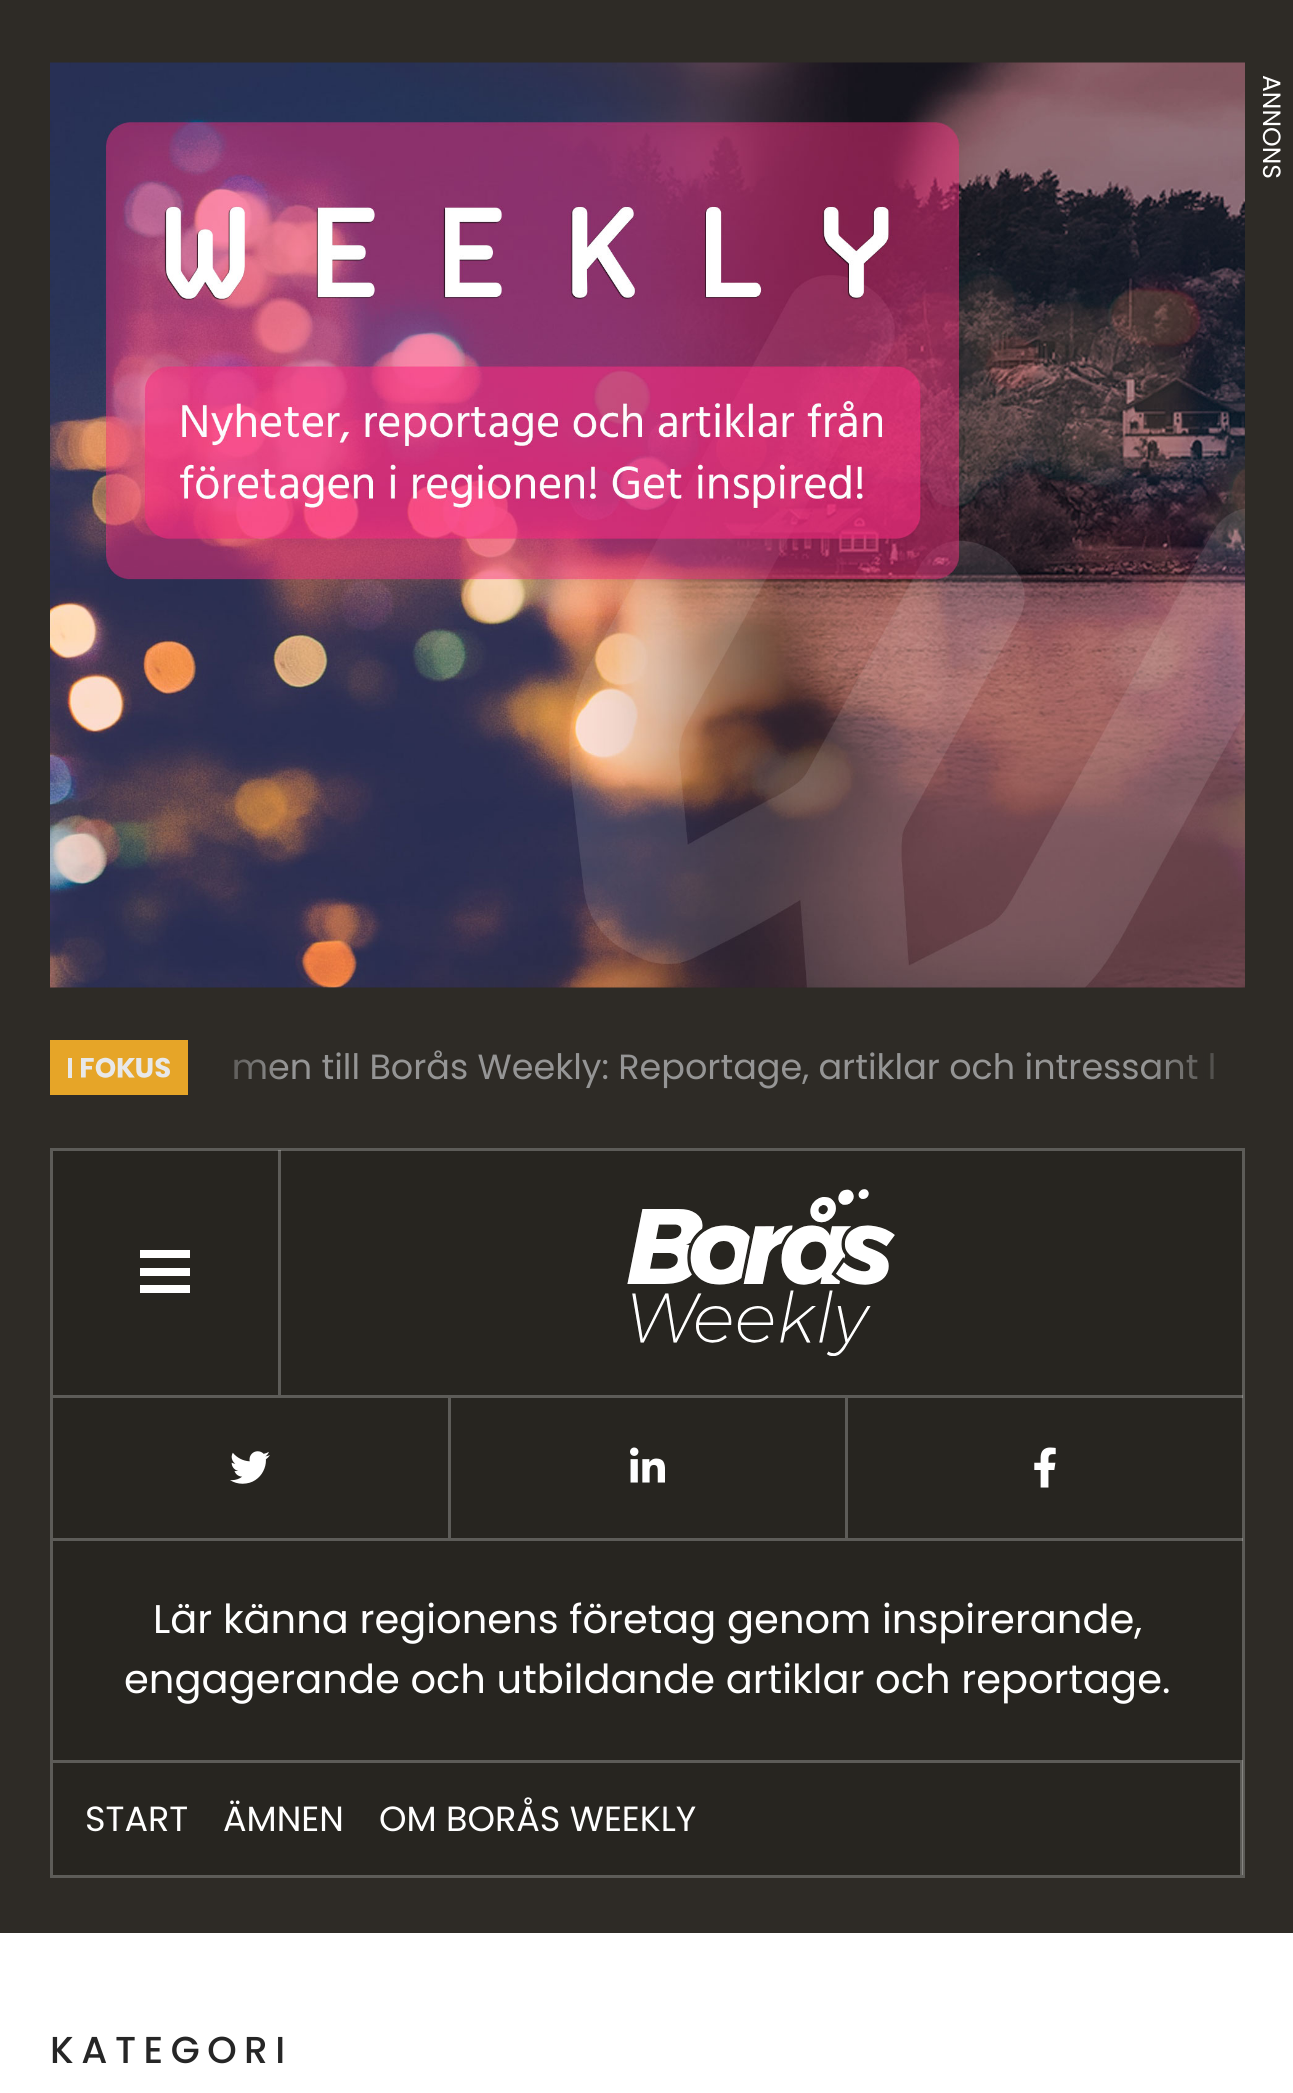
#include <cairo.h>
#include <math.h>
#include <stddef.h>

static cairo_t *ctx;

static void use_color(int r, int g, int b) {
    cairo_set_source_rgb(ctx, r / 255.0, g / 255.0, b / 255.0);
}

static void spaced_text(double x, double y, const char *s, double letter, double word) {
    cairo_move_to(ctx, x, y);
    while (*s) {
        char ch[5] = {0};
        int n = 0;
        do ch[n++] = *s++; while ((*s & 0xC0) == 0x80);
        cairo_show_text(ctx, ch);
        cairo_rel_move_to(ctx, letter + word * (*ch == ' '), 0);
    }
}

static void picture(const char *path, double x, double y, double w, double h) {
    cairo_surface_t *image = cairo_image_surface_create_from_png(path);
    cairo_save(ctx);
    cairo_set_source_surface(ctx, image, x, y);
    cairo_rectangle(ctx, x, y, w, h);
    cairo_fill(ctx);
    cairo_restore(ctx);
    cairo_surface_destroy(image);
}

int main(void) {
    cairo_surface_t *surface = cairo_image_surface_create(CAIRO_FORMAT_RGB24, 1293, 2093);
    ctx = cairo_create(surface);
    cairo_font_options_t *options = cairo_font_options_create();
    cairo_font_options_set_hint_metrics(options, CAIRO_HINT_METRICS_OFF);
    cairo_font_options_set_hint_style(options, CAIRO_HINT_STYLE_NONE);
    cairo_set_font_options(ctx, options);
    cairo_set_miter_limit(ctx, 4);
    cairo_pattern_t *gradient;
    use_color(46, 43, 38);
    cairo_paint(ctx);
    picture("img1.png", 50, 62, 1195, 926);
    cairo_select_font_face(ctx, "Poppins", CAIRO_FONT_SLANT_NORMAL, CAIRO_FONT_WEIGHT_NORMAL);
    cairo_set_font_size(ctx, 25);
    use_color(255, 255, 255);
    cairo_save(ctx);
    cairo_translate(ctx, 1263, 75);
    cairo_rotate(ctx, 90 * M_PI / 180);
    cairo_move_to(ctx, 0, 0);
    cairo_show_text(ctx, "ANNONS");
    cairo_restore(ctx);
    picture("img2.png", 50, 1040, 138, 55);
    cairo_set_font_size(ctx, 35);
    use_color(149, 149, 149);
    cairo_move_to(ctx, 232, 1079);
    cairo_show_text(ctx, "men till Borås Weekly: Reportage, artiklar och intressant l");
    gradient = cairo_pattern_create_linear(185, 1068, 285, 1068);
    cairo_pattern_add_color_stop_rgba(gradient, 0, 0.18, 0.169, 0.149, 1);
    cairo_pattern_add_color_stop_rgba(gradient, 1, 0.18, 0.169, 0.149, 0);
    cairo_set_source(ctx, gradient);
    cairo_pattern_destroy(gradient);
    cairo_rectangle(ctx, 235, 1059, 47, 20);
    cairo_fill(ctx);
    gradient = cairo_pattern_create_linear(1248, 1068, 1148, 1068);
    cairo_pattern_add_color_stop_rgba(gradient, 0, 0.18, 0.169, 0.149, 1);
    cairo_pattern_add_color_stop_rgba(gradient, 1, 0.18, 0.169, 0.149, 0);
    cairo_set_source(ctx, gradient);
    cairo_pattern_destroy(gradient);
    cairo_rectangle(ctx, 1151, 1053, 64, 26);
    cairo_fill(ctx);
    use_color(39, 37, 32);
    cairo_rectangle(ctx, 51.5, 1149.5, 1192, 727);
    cairo_fill_preserve(ctx);
    use_color(93, 92, 88);
    cairo_set_line_width(ctx, 3);
    cairo_stroke(ctx);
    use_color(255, 255, 255);
    cairo_rectangle(ctx, 140, 1250, 50, 8);
    cairo_fill(ctx);
    cairo_rectangle(ctx, 140, 1268, 50, 8);
    cairo_fill(ctx);
    cairo_rectangle(ctx, 140, 1285, 50, 8);
    cairo_fill(ctx);
    cairo_set_source_rgba(ctx, 1, 1, 1, 0.25);
    cairo_rectangle(ctx, 278, 1150, 3, 245);
    cairo_fill(ctx);
    picture("img3.png", 627, 1189, 268, 167);
    cairo_rectangle(ctx, 53, 1395, 1190, 3);
    cairo_fill(ctx);
    picture("img4.png", 230, 1451, 40, 33);
    use_color(93, 92, 88);
    cairo_rectangle(ctx, 448, 1398, 3, 140);
    cairo_fill(ctx);
    picture("img5.png", 630, 1447, 35, 36);
    cairo_rectangle(ctx, 845, 1398, 3, 140);
    cairo_fill(ctx);
    picture("img6.png", 1034, 1447, 22, 41);
    cairo_set_source_rgba(ctx, 1, 1, 1, 0.25);
    cairo_rectangle(ctx, 53, 1538, 1190, 3);
    cairo_fill(ctx);
    cairo_set_font_size(ctx, 40);
    use_color(255, 255, 255);
    cairo_move_to(ctx, 153, 1633);
    cairo_show_text(ctx, "Lär känna regionens företag genom inspirerande,");
    cairo_move_to(ctx, 124, 1693);
    cairo_show_text(ctx, "engagerande och utbildande artiklar och reportage.");
    cairo_set_source_rgba(ctx, 1, 1, 1, 0.25);
    cairo_rectangle(ctx, 53, 1760, 1190, 3);
    cairo_fill(ctx);
    cairo_rectangle(ctx, 1240, 1763, 3, 112);
    cairo_fill(ctx);
    cairo_set_font_size(ctx, 35);
    use_color(255, 255, 255);
    cairo_move_to(ctx, 85, 1831);
    cairo_show_text(ctx, "START");
    cairo_move_to(ctx, 223, 1831);
    cairo_show_text(ctx, "ÄMNEN");
    cairo_move_to(ctx, 379, 1831);
    cairo_show_text(ctx, "OM BORÅS WEEKLY");
    cairo_rectangle(ctx, 0, 1933, 1293, 160);
    cairo_fill(ctx);
    cairo_select_font_face(ctx, "Poppins Medium", CAIRO_FONT_SLANT_NORMAL, CAIRO_FONT_WEIGHT_NORMAL);
    cairo_set_font_size(ctx, 37.5);
    use_color(38, 38, 38);
    spaced_text(50, 2063, "KATEGORI", 7.5, 0);
    cairo_surface_write_to_png(surface, "result.png");
    cairo_font_options_destroy(options);
    cairo_destroy(ctx);
    cairo_surface_destroy(surface);
    return 0;
}
